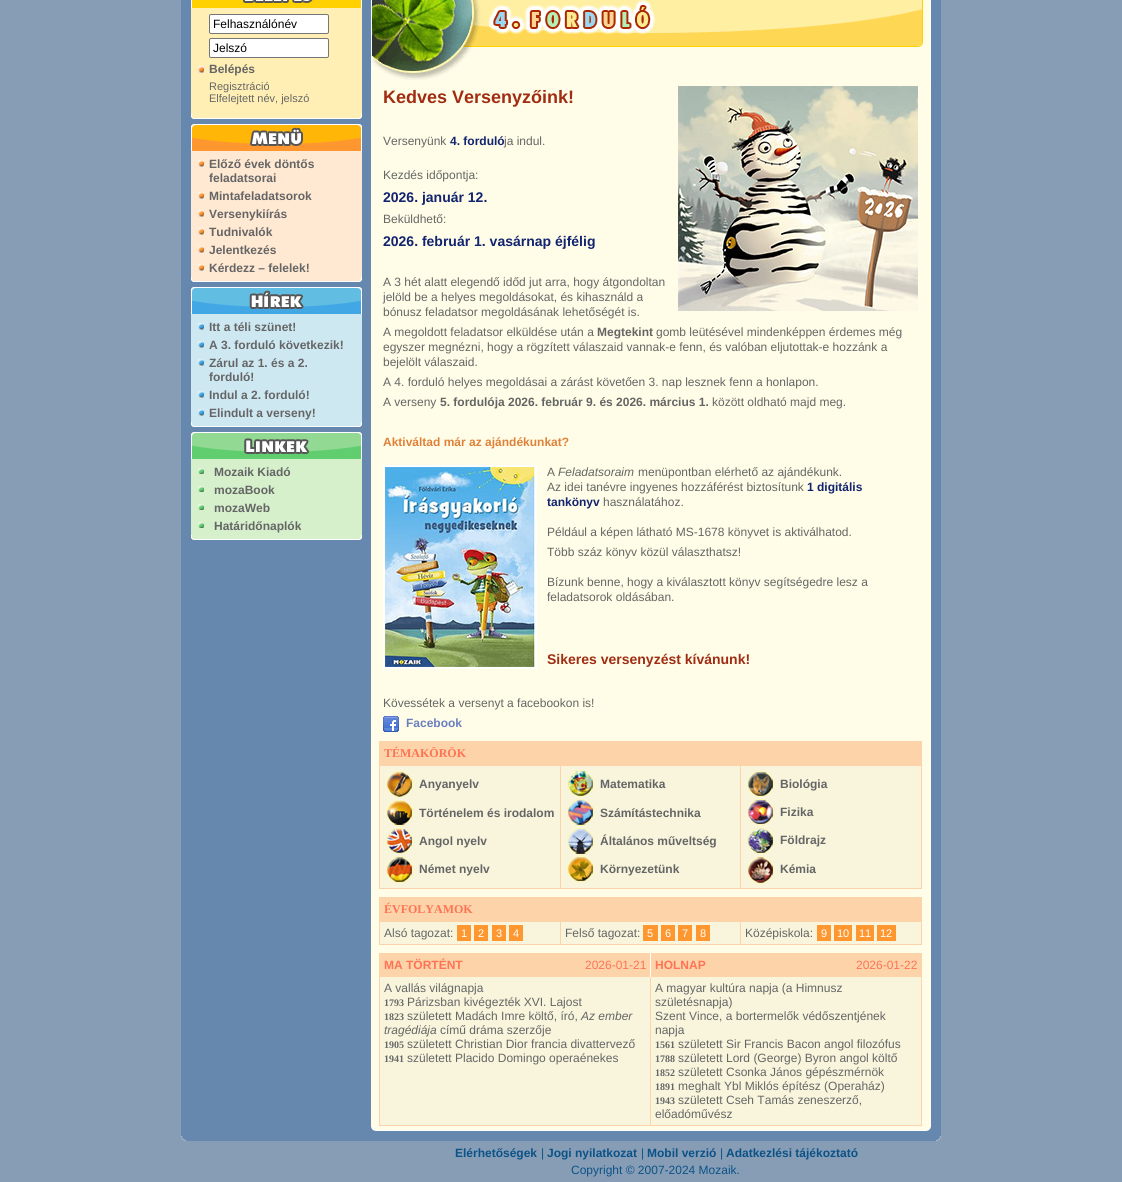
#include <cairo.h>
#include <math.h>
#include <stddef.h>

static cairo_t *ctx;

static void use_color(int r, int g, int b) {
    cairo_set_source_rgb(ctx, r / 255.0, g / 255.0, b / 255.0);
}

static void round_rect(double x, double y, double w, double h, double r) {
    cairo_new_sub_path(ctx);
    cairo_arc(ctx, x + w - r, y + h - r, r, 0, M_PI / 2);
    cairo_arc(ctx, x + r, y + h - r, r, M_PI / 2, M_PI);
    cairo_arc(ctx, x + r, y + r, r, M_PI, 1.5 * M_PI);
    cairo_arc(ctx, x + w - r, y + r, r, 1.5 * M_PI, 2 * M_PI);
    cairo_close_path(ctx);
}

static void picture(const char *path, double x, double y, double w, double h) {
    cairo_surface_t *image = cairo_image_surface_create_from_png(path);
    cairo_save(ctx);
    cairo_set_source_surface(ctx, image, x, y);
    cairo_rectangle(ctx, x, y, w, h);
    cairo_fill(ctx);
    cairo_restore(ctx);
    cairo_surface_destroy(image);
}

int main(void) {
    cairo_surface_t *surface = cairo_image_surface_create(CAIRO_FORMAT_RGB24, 1122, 1182);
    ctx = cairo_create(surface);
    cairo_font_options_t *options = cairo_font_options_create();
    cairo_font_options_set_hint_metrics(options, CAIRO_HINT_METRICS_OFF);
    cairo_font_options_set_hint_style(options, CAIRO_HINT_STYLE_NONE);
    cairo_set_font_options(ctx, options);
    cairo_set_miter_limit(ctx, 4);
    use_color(135, 157, 182);
    cairo_paint(ctx);
    use_color(102, 136, 174);
    cairo_rectangle(ctx, 181, 0, 760, 1136);
    cairo_fill(ctx);
    use_color(255, 239, 181);
    cairo_rectangle(ctx, 191, 8, 171, 106);
    cairo_fill(ctx);
    picture("img1.png", 191, 0, 171, 8);
    use_color(255, 255, 255);
    round_rect(209.5, 14.5, 119, 19, 1.5);
    cairo_fill_preserve(ctx);
    use_color(118, 118, 118);
    cairo_set_line_width(ctx, 1);
    cairo_stroke(ctx);
    cairo_select_font_face(ctx, "Liberation Sans", CAIRO_FONT_SLANT_NORMAL, CAIRO_FONT_WEIGHT_NORMAL);
    cairo_set_font_size(ctx, 12);
    use_color(0, 0, 0);
    cairo_move_to(ctx, 213, 28);
    cairo_show_text(ctx, "Felhasználónév");
    use_color(255, 255, 255);
    round_rect(209.5, 38.5, 119, 19, 1.5);
    cairo_fill_preserve(ctx);
    use_color(118, 118, 118);
    cairo_stroke(ctx);
    use_color(0, 0, 0);
    cairo_move_to(ctx, 213, 52);
    cairo_show_text(ctx, "Jelszó");
    picture("img2.png", 198, 66, 7, 7);
    cairo_select_font_face(ctx, "Liberation Sans", CAIRO_FONT_SLANT_NORMAL, CAIRO_FONT_WEIGHT_BOLD);
    use_color(101, 101, 101);
    cairo_move_to(ctx, 209, 73);
    cairo_show_text(ctx, "Belépés");
    cairo_select_font_face(ctx, "Liberation Sans", CAIRO_FONT_SLANT_NORMAL, CAIRO_FONT_WEIGHT_NORMAL);
    cairo_set_font_size(ctx, 11);
    cairo_move_to(ctx, 209, 90);
    cairo_show_text(ctx, "Regisztráció");
    cairo_move_to(ctx, 209, 102);
    cairo_show_text(ctx, "Elfelejtett név, jelszó");
    picture("img3.png", 191, 114, 171, 5);
    use_color(255, 233, 211);
    cairo_rectangle(ctx, 191, 151, 171, 126);
    cairo_fill(ctx);
    picture("img4.png", 191, 124, 171, 27);
    picture("img5.png", 198, 160, 6, 7);
    cairo_select_font_face(ctx, "Liberation Sans", CAIRO_FONT_SLANT_NORMAL, CAIRO_FONT_WEIGHT_BOLD);
    cairo_set_font_size(ctx, 12);
    use_color(101, 101, 101);
    cairo_move_to(ctx, 209, 168);
    cairo_show_text(ctx, "Előző évek döntős");
    cairo_move_to(ctx, 209, 182);
    cairo_show_text(ctx, "feladatsorai");
    picture("img5.png", 198, 192, 6, 7);
    cairo_move_to(ctx, 209, 200);
    cairo_show_text(ctx, "Mintafeladatsorok");
    picture("img5.png", 198, 210, 6, 7);
    cairo_move_to(ctx, 209, 218);
    cairo_show_text(ctx, "Versenykiírás");
    picture("img5.png", 198, 228, 6, 7);
    cairo_move_to(ctx, 209, 236);
    cairo_show_text(ctx, "Tudnivalók");
    picture("img5.png", 198, 246, 6, 7);
    cairo_move_to(ctx, 209, 254);
    cairo_show_text(ctx, "Jelentkezés");
    picture("img5.png", 198, 264, 6, 7);
    cairo_move_to(ctx, 209, 272);
    cairo_show_text(ctx, "Kérdezz – felelek!");
    picture("img6.png", 191, 277, 171, 5);
    use_color(206, 232, 242);
    cairo_rectangle(ctx, 191, 314, 171, 108);
    cairo_fill(ctx);
    picture("img7.png", 191, 287, 171, 27);
    picture("img8.png", 198, 323, 6, 7);
    use_color(101, 101, 101);
    cairo_move_to(ctx, 209, 331);
    cairo_show_text(ctx, "Itt a téli szünet!");
    picture("img8.png", 198, 341, 6, 7);
    cairo_move_to(ctx, 209, 349);
    cairo_show_text(ctx, "A 3. forduló következik!");
    picture("img8.png", 198, 359, 6, 7);
    cairo_move_to(ctx, 209, 367);
    cairo_show_text(ctx, "Zárul az 1. és a 2.");
    cairo_move_to(ctx, 209, 381);
    cairo_show_text(ctx, "forduló!");
    picture("img8.png", 198, 391, 6, 7);
    cairo_move_to(ctx, 209, 399);
    cairo_show_text(ctx, "Indul a 2. forduló!");
    picture("img8.png", 198, 409, 6, 7);
    cairo_move_to(ctx, 209, 417);
    cairo_show_text(ctx, "Elindult a verseny!");
    picture("img9.png", 191, 422, 171, 5);
    use_color(214, 240, 204);
    cairo_rectangle(ctx, 191, 459, 171, 76);
    cairo_fill(ctx);
    picture("img10.png", 191, 432, 171, 27);
    picture("img11.png", 198, 468, 6, 6);
    use_color(101, 101, 101);
    cairo_move_to(ctx, 214, 476);
    cairo_show_text(ctx, "Mozaik Kiadó");
    picture("img11.png", 198, 486, 6, 6);
    cairo_move_to(ctx, 214, 494);
    cairo_show_text(ctx, "mozaBook");
    picture("img11.png", 198, 504, 6, 6);
    cairo_move_to(ctx, 214, 512);
    cairo_show_text(ctx, "mozaWeb");
    picture("img11.png", 198, 522, 6, 6);
    cairo_move_to(ctx, 214, 530);
    cairo_show_text(ctx, "Határidőnaplók");
    picture("img12.png", 191, 535, 171, 5);
    use_color(255, 253, 231);
    cairo_rectangle(ctx, 371, 82, 560, 1048);
    cairo_fill(ctx);
    picture("img13.png", 371, 0, 560, 82);
    cairo_set_font_size(ctx, 18);
    use_color(160, 45, 19);
    cairo_move_to(ctx, 383, 103);
    cairo_show_text(ctx, "Kedves Versenyzőink!");
    picture("img14.png", 678, 86, 240, 225);
    cairo_select_font_face(ctx, "Liberation Sans", CAIRO_FONT_SLANT_NORMAL, CAIRO_FONT_WEIGHT_NORMAL);
    cairo_set_font_size(ctx, 12);
    use_color(101, 101, 101);
    cairo_move_to(ctx, 383, 145);
    cairo_show_text(ctx, "Versenyünk");
    cairo_select_font_face(ctx, "Liberation Sans", CAIRO_FONT_SLANT_NORMAL, CAIRO_FONT_WEIGHT_BOLD);
    use_color(18, 35, 112);
    cairo_move_to(ctx, 450, 145);
    cairo_show_text(ctx, "4. forduló");
    cairo_select_font_face(ctx, "Liberation Sans", CAIRO_FONT_SLANT_NORMAL, CAIRO_FONT_WEIGHT_NORMAL);
    use_color(101, 101, 101);
    cairo_move_to(ctx, 504, 145);
    cairo_show_text(ctx, "ja indul.");
    cairo_move_to(ctx, 383, 179);
    cairo_show_text(ctx, "Kezdés időpontja:");
    cairo_select_font_face(ctx, "Liberation Sans", CAIRO_FONT_SLANT_NORMAL, CAIRO_FONT_WEIGHT_BOLD);
    cairo_set_font_size(ctx, 14);
    use_color(18, 35, 112);
    cairo_move_to(ctx, 383, 202);
    cairo_show_text(ctx, "2026. január 12.");
    cairo_select_font_face(ctx, "Liberation Sans", CAIRO_FONT_SLANT_NORMAL, CAIRO_FONT_WEIGHT_NORMAL);
    cairo_set_font_size(ctx, 12);
    use_color(101, 101, 101);
    cairo_move_to(ctx, 383, 223);
    cairo_show_text(ctx, "Beküldhető:");
    cairo_select_font_face(ctx, "Liberation Sans", CAIRO_FONT_SLANT_NORMAL, CAIRO_FONT_WEIGHT_BOLD);
    cairo_set_font_size(ctx, 14);
    use_color(18, 35, 112);
    cairo_move_to(ctx, 383, 246);
    cairo_show_text(ctx, "2026. február 1. vasárnap éjfélig");
    cairo_select_font_face(ctx, "Liberation Sans", CAIRO_FONT_SLANT_NORMAL, CAIRO_FONT_WEIGHT_NORMAL);
    cairo_set_font_size(ctx, 12);
    use_color(101, 101, 101);
    cairo_move_to(ctx, 383, 286);
    cairo_show_text(ctx, "A 3 hét alatt elegendő időd jut arra, hogy átgondoltan");
    cairo_move_to(ctx, 383, 301);
    cairo_show_text(ctx, "jelöld be a helyes megoldásokat, és kihasználd a");
    cairo_move_to(ctx, 383, 316);
    cairo_show_text(ctx, "bónusz feladatsor megoldásának lehetőségét is.");
    cairo_move_to(ctx, 383, 336);
    cairo_show_text(ctx, "A megoldott feladatsor elküldése után a");
    cairo_select_font_face(ctx, "Liberation Sans", CAIRO_FONT_SLANT_NORMAL, CAIRO_FONT_WEIGHT_BOLD);
    cairo_move_to(ctx, 597, 336);
    cairo_show_text(ctx, "Megtekint");
    cairo_select_font_face(ctx, "Liberation Sans", CAIRO_FONT_SLANT_NORMAL, CAIRO_FONT_WEIGHT_NORMAL);
    cairo_move_to(ctx, 656, 336);
    cairo_show_text(ctx, "gomb leütésével mindenképpen érdemes még");
    cairo_move_to(ctx, 383, 351);
    cairo_show_text(ctx, "egyszer megnézni, hogy a rögzített válaszaid vannak-e fenn, és valóban eljutottak-e hozzánk a");
    cairo_move_to(ctx, 383, 366);
    cairo_show_text(ctx, "bejelölt válaszaid.");
    cairo_move_to(ctx, 383, 386);
    cairo_show_text(ctx, "A 4. forduló helyes megoldásai a zárást követően 3. nap lesznek fenn a honlapon.");
    cairo_move_to(ctx, 383, 406);
    cairo_show_text(ctx, "A verseny");
    cairo_select_font_face(ctx, "Liberation Sans", CAIRO_FONT_SLANT_NORMAL, CAIRO_FONT_WEIGHT_BOLD);
    cairo_move_to(ctx, 440, 406);
    cairo_show_text(ctx, "5. fordulója 2026. február 9. és 2026. március 1.");
    cairo_select_font_face(ctx, "Liberation Sans", CAIRO_FONT_SLANT_NORMAL, CAIRO_FONT_WEIGHT_NORMAL);
    cairo_move_to(ctx, 712, 406);
    cairo_show_text(ctx, "között oldható majd meg.");
    cairo_select_font_face(ctx, "Liberation Sans", CAIRO_FONT_SLANT_NORMAL, CAIRO_FONT_WEIGHT_BOLD);
    use_color(223, 129, 57);
    cairo_move_to(ctx, 383, 446);
    cairo_show_text(ctx, "Aktiváltad már az ajándékunkat?");
    cairo_rectangle(ctx, 384, 466, 152, 202);
    use_color(255, 255, 255);
    cairo_set_line_width(ctx, 2);
    cairo_stroke(ctx);
    picture("img15.png", 385, 467, 150, 200);
    cairo_select_font_face(ctx, "Liberation Sans", CAIRO_FONT_SLANT_NORMAL, CAIRO_FONT_WEIGHT_NORMAL);
    use_color(101, 101, 101);
    cairo_move_to(ctx, 547, 476);
    cairo_show_text(ctx, "A");
    cairo_select_font_face(ctx, "Liberation Sans", CAIRO_FONT_SLANT_ITALIC, CAIRO_FONT_WEIGHT_NORMAL);
    cairo_move_to(ctx, 558, 476);
    cairo_show_text(ctx, "Feladatsoraim");
    cairo_select_font_face(ctx, "Liberation Sans", CAIRO_FONT_SLANT_NORMAL, CAIRO_FONT_WEIGHT_NORMAL);
    cairo_move_to(ctx, 638, 476);
    cairo_show_text(ctx, "menüpontban elérhető az ajándékunk.");
    cairo_move_to(ctx, 547, 491);
    cairo_show_text(ctx, "Az idei tanévre ingyenes hozzáférést biztosítunk");
    cairo_select_font_face(ctx, "Liberation Sans", CAIRO_FONT_SLANT_NORMAL, CAIRO_FONT_WEIGHT_BOLD);
    use_color(18, 35, 112);
    cairo_move_to(ctx, 807, 491);
    cairo_show_text(ctx, "1 digitális");
    cairo_move_to(ctx, 547, 506);
    cairo_show_text(ctx, "tankönyv");
    cairo_select_font_face(ctx, "Liberation Sans", CAIRO_FONT_SLANT_NORMAL, CAIRO_FONT_WEIGHT_NORMAL);
    use_color(101, 101, 101);
    cairo_move_to(ctx, 603, 506);
    cairo_show_text(ctx, "használatához.");
    cairo_move_to(ctx, 547, 536);
    cairo_show_text(ctx, "Például a képen látható MS-1678 könyvet is aktiválhatod.");
    cairo_move_to(ctx, 547, 556);
    cairo_show_text(ctx, "Több száz könyv közül választhatsz!");
    cairo_move_to(ctx, 547, 586);
    cairo_show_text(ctx, "Bízunk benne, hogy a kiválasztott könyv segítségedre lesz a");
    cairo_move_to(ctx, 547, 601);
    cairo_show_text(ctx, "feladatsorok oldásában.");
    cairo_select_font_face(ctx, "Liberation Sans", CAIRO_FONT_SLANT_NORMAL, CAIRO_FONT_WEIGHT_BOLD);
    cairo_set_font_size(ctx, 14);
    use_color(160, 45, 19);
    cairo_move_to(ctx, 547, 664);
    cairo_show_text(ctx, "Sikeres versenyzést kívánunk!");
    cairo_select_font_face(ctx, "Liberation Sans", CAIRO_FONT_SLANT_NORMAL, CAIRO_FONT_WEIGHT_NORMAL);
    cairo_set_font_size(ctx, 12);
    use_color(101, 101, 101);
    cairo_move_to(ctx, 383, 707);
    cairo_show_text(ctx, "Kövessétek a versenyt a facebookon is!");
    picture("img16.png", 383, 716, 16, 16);
    cairo_select_font_face(ctx, "Liberation Sans", CAIRO_FONT_SLANT_NORMAL, CAIRO_FONT_WEIGHT_BOLD);
    use_color(107, 127, 191);
    cairo_move_to(ctx, 406, 727);
    cairo_show_text(ctx, "Facebook");
    use_color(253, 211, 169);
    cairo_rectangle(ctx, 379, 741, 543, 148);
    cairo_fill(ctx);
    cairo_select_font_face(ctx, "Liberation Serif", CAIRO_FONT_SLANT_NORMAL, CAIRO_FONT_WEIGHT_BOLD);
    use_color(253, 116, 84);
    cairo_move_to(ctx, 384, 757);
    cairo_show_text(ctx, "TÉMAKÖRÖK");
    use_color(248, 245, 220);
    cairo_rectangle(ctx, 380, 766, 180, 122);
    cairo_fill(ctx);
    picture("img17.png", 386, 771, 27, 27);
    cairo_select_font_face(ctx, "Liberation Sans", CAIRO_FONT_SLANT_NORMAL, CAIRO_FONT_WEIGHT_BOLD);
    use_color(101, 101, 101);
    cairo_move_to(ctx, 419, 788);
    cairo_show_text(ctx, "Anyanyelv");
    picture("img18.png", 386, 800, 27, 26);
    cairo_move_to(ctx, 419, 817);
    cairo_show_text(ctx, "Történelem és irodalom");
    picture("img19.png", 386, 828, 27, 26);
    cairo_move_to(ctx, 419, 845);
    cairo_show_text(ctx, "Angol nyelv");
    picture("img20.png", 386, 856, 27, 27);
    cairo_move_to(ctx, 419, 873);
    cairo_show_text(ctx, "Német nyelv");
    use_color(248, 245, 220);
    cairo_rectangle(ctx, 561, 766, 179, 122);
    cairo_fill(ctx);
    picture("img21.png", 567, 770, 27, 27);
    use_color(101, 101, 101);
    cairo_move_to(ctx, 600, 788);
    cairo_show_text(ctx, "Matematika");
    picture("img22.png", 567, 799, 27, 27);
    cairo_move_to(ctx, 600, 817);
    cairo_show_text(ctx, "Számítástechnika");
    picture("img23.png", 567, 828, 27, 27);
    cairo_move_to(ctx, 600, 845);
    cairo_show_text(ctx, "Általános műveltség");
    picture("img24.png", 567, 856, 27, 26);
    cairo_move_to(ctx, 600, 873);
    cairo_show_text(ctx, "Környezetünk");
    use_color(248, 245, 220);
    cairo_rectangle(ctx, 741, 766, 180, 122);
    cairo_fill(ctx);
    picture("img25.png", 747, 771, 27, 26);
    use_color(101, 101, 101);
    cairo_move_to(ctx, 780, 788);
    cairo_show_text(ctx, "Biológia");
    picture("img26.png", 747, 799, 27, 26);
    cairo_move_to(ctx, 780, 816);
    cairo_show_text(ctx, "Fizika");
    picture("img27.png", 747, 827, 27, 27);
    cairo_move_to(ctx, 780, 844);
    cairo_show_text(ctx, "Földrajz");
    picture("img28.png", 747, 856, 27, 28);
    cairo_move_to(ctx, 780, 873);
    cairo_show_text(ctx, "Kémia");
    use_color(253, 211, 169);
    cairo_rectangle(ctx, 379, 897, 543, 48);
    cairo_fill(ctx);
    cairo_select_font_face(ctx, "Liberation Serif", CAIRO_FONT_SLANT_NORMAL, CAIRO_FONT_WEIGHT_BOLD);
    use_color(253, 116, 84);
    cairo_move_to(ctx, 384, 913);
    cairo_show_text(ctx, "ÉVFOLYAMOK");
    use_color(248, 245, 220);
    cairo_rectangle(ctx, 380, 922, 180, 22);
    cairo_fill(ctx);
    cairo_select_font_face(ctx, "Liberation Sans", CAIRO_FONT_SLANT_NORMAL, CAIRO_FONT_WEIGHT_NORMAL);
    use_color(101, 101, 101);
    cairo_move_to(ctx, 384, 937);
    cairo_show_text(ctx, "Alsó tagozat:");
    use_color(255, 151, 48);
    cairo_rectangle(ctx, 457, 925, 14, 16);
    cairo_fill(ctx);
    cairo_set_font_size(ctx, 11);
    use_color(255, 255, 255);
    cairo_move_to(ctx, 461, 937);
    cairo_show_text(ctx, "1");
    use_color(255, 151, 48);
    cairo_rectangle(ctx, 474, 925, 14, 16);
    cairo_fill(ctx);
    use_color(255, 255, 255);
    cairo_move_to(ctx, 478, 937);
    cairo_show_text(ctx, "2");
    use_color(255, 151, 48);
    cairo_rectangle(ctx, 492, 925, 14, 16);
    cairo_fill(ctx);
    use_color(255, 255, 255);
    cairo_move_to(ctx, 496, 937);
    cairo_show_text(ctx, "3");
    use_color(255, 151, 48);
    cairo_rectangle(ctx, 509, 925, 14, 16);
    cairo_fill(ctx);
    use_color(255, 255, 255);
    cairo_move_to(ctx, 513, 937);
    cairo_show_text(ctx, "4");
    use_color(248, 245, 220);
    cairo_rectangle(ctx, 561, 922, 179, 22);
    cairo_fill(ctx);
    cairo_set_font_size(ctx, 12);
    use_color(101, 101, 101);
    cairo_move_to(ctx, 565, 937);
    cairo_show_text(ctx, "Felső tagozat:");
    use_color(255, 151, 48);
    cairo_rectangle(ctx, 643, 925, 15, 16);
    cairo_fill(ctx);
    cairo_set_font_size(ctx, 11);
    use_color(255, 255, 255);
    cairo_move_to(ctx, 647, 937);
    cairo_show_text(ctx, "5");
    use_color(255, 151, 48);
    cairo_rectangle(ctx, 661, 925, 14, 16);
    cairo_fill(ctx);
    use_color(255, 255, 255);
    cairo_move_to(ctx, 665, 937);
    cairo_show_text(ctx, "6");
    use_color(255, 151, 48);
    cairo_rectangle(ctx, 678, 925, 14, 16);
    cairo_fill(ctx);
    use_color(255, 255, 255);
    cairo_move_to(ctx, 682, 937);
    cairo_show_text(ctx, "7");
    use_color(255, 151, 48);
    cairo_rectangle(ctx, 696, 925, 14, 16);
    cairo_fill(ctx);
    use_color(255, 255, 255);
    cairo_move_to(ctx, 700, 937);
    cairo_show_text(ctx, "8");
    use_color(248, 245, 220);
    cairo_rectangle(ctx, 741, 922, 180, 22);
    cairo_fill(ctx);
    cairo_set_font_size(ctx, 12);
    use_color(101, 101, 101);
    cairo_move_to(ctx, 745, 937);
    cairo_show_text(ctx, "Középiskola:");
    use_color(255, 151, 48);
    cairo_rectangle(ctx, 817, 925, 14, 16);
    cairo_fill(ctx);
    cairo_set_font_size(ctx, 11);
    use_color(255, 255, 255);
    cairo_move_to(ctx, 821, 937);
    cairo_show_text(ctx, "9");
    use_color(255, 151, 48);
    cairo_rectangle(ctx, 834, 925, 18, 16);
    cairo_fill(ctx);
    use_color(255, 255, 255);
    cairo_move_to(ctx, 837, 937);
    cairo_show_text(ctx, "10");
    use_color(255, 151, 48);
    cairo_rectangle(ctx, 856, 925, 18, 16);
    cairo_fill(ctx);
    use_color(255, 255, 255);
    cairo_move_to(ctx, 859, 937);
    cairo_show_text(ctx, "11");
    use_color(255, 151, 48);
    cairo_rectangle(ctx, 877, 925, 19, 16);
    cairo_fill(ctx);
    use_color(255, 255, 255);
    cairo_move_to(ctx, 880, 937);
    cairo_show_text(ctx, "12");
    use_color(253, 211, 169);
    cairo_rectangle(ctx, 379, 953, 543, 173);
    cairo_fill(ctx);
    cairo_select_font_face(ctx, "Liberation Sans", CAIRO_FONT_SLANT_NORMAL, CAIRO_FONT_WEIGHT_BOLD);
    cairo_set_font_size(ctx, 12);
    use_color(253, 116, 84);
    cairo_move_to(ctx, 384, 969);
    cairo_show_text(ctx, "MA TÖRTÉNT");
    cairo_select_font_face(ctx, "Liberation Sans", CAIRO_FONT_SLANT_NORMAL, CAIRO_FONT_WEIGHT_NORMAL);
    cairo_move_to(ctx, 585, 969);
    cairo_show_text(ctx, "2026-01-21");
    use_color(255, 255, 255);
    cairo_rectangle(ctx, 650, 953, 1, 24);
    cairo_fill(ctx);
    cairo_select_font_face(ctx, "Liberation Sans", CAIRO_FONT_SLANT_NORMAL, CAIRO_FONT_WEIGHT_BOLD);
    use_color(253, 116, 84);
    cairo_move_to(ctx, 655, 969);
    cairo_show_text(ctx, "HOLNAP");
    cairo_select_font_face(ctx, "Liberation Sans", CAIRO_FONT_SLANT_NORMAL, CAIRO_FONT_WEIGHT_NORMAL);
    cairo_move_to(ctx, 856, 969);
    cairo_show_text(ctx, "2026-01-22");
    use_color(248, 245, 220);
    cairo_rectangle(ctx, 380, 977, 270, 148);
    cairo_fill(ctx);
    use_color(101, 101, 101);
    cairo_move_to(ctx, 384, 992);
    cairo_show_text(ctx, "A vallás világnapja");
    cairo_select_font_face(ctx, "Liberation Serif", CAIRO_FONT_SLANT_NORMAL, CAIRO_FONT_WEIGHT_BOLD);
    cairo_set_font_size(ctx, 10);
    cairo_move_to(ctx, 384, 1006);
    cairo_show_text(ctx, "1793");
    cairo_select_font_face(ctx, "Liberation Sans", CAIRO_FONT_SLANT_NORMAL, CAIRO_FONT_WEIGHT_NORMAL);
    cairo_set_font_size(ctx, 12);
    cairo_move_to(ctx, 407, 1006);
    cairo_show_text(ctx, "Párizsban kivégezték XVI. Lajost");
    cairo_select_font_face(ctx, "Liberation Serif", CAIRO_FONT_SLANT_NORMAL, CAIRO_FONT_WEIGHT_BOLD);
    cairo_set_font_size(ctx, 10);
    cairo_move_to(ctx, 384, 1020);
    cairo_show_text(ctx, "1823");
    cairo_select_font_face(ctx, "Liberation Sans", CAIRO_FONT_SLANT_NORMAL, CAIRO_FONT_WEIGHT_NORMAL);
    cairo_set_font_size(ctx, 12);
    cairo_move_to(ctx, 407, 1020);
    cairo_show_text(ctx, "született Madách Imre költő, író,");
    cairo_select_font_face(ctx, "Liberation Sans", CAIRO_FONT_SLANT_ITALIC, CAIRO_FONT_WEIGHT_NORMAL);
    cairo_move_to(ctx, 581, 1020);
    cairo_show_text(ctx, "Az ember");
    cairo_move_to(ctx, 384, 1034);
    cairo_show_text(ctx, "tragédiája");
    cairo_select_font_face(ctx, "Liberation Sans", CAIRO_FONT_SLANT_NORMAL, CAIRO_FONT_WEIGHT_NORMAL);
    cairo_move_to(ctx, 440, 1034);
    cairo_show_text(ctx, "című dráma szerzője");
    cairo_select_font_face(ctx, "Liberation Serif", CAIRO_FONT_SLANT_NORMAL, CAIRO_FONT_WEIGHT_BOLD);
    cairo_set_font_size(ctx, 10);
    cairo_move_to(ctx, 384, 1048);
    cairo_show_text(ctx, "1905");
    cairo_select_font_face(ctx, "Liberation Sans", CAIRO_FONT_SLANT_NORMAL, CAIRO_FONT_WEIGHT_NORMAL);
    cairo_set_font_size(ctx, 12);
    cairo_move_to(ctx, 407, 1048);
    cairo_show_text(ctx, "született Christian Dior francia divattervező");
    cairo_select_font_face(ctx, "Liberation Serif", CAIRO_FONT_SLANT_NORMAL, CAIRO_FONT_WEIGHT_BOLD);
    cairo_set_font_size(ctx, 10);
    cairo_move_to(ctx, 384, 1062);
    cairo_show_text(ctx, "1941");
    cairo_select_font_face(ctx, "Liberation Sans", CAIRO_FONT_SLANT_NORMAL, CAIRO_FONT_WEIGHT_NORMAL);
    cairo_set_font_size(ctx, 12);
    cairo_move_to(ctx, 407, 1062);
    cairo_show_text(ctx, "született Placido Domingo operaénekes");
    use_color(248, 245, 220);
    cairo_rectangle(ctx, 651, 977, 270, 148);
    cairo_fill(ctx);
    use_color(101, 101, 101);
    cairo_move_to(ctx, 655, 992);
    cairo_show_text(ctx, "A magyar kultúra napja (a Himnusz");
    cairo_move_to(ctx, 655, 1006);
    cairo_show_text(ctx, "születésnapja)");
    cairo_move_to(ctx, 655, 1020);
    cairo_show_text(ctx, "Szent Vince, a bortermelők védőszentjének");
    cairo_move_to(ctx, 655, 1034);
    cairo_show_text(ctx, "napja");
    cairo_select_font_face(ctx, "Liberation Serif", CAIRO_FONT_SLANT_NORMAL, CAIRO_FONT_WEIGHT_BOLD);
    cairo_set_font_size(ctx, 10);
    cairo_move_to(ctx, 655, 1048);
    cairo_show_text(ctx, "1561");
    cairo_select_font_face(ctx, "Liberation Sans", CAIRO_FONT_SLANT_NORMAL, CAIRO_FONT_WEIGHT_NORMAL);
    cairo_set_font_size(ctx, 12);
    cairo_move_to(ctx, 678, 1048);
    cairo_show_text(ctx, "született Sir Francis Bacon angol filozófus");
    cairo_select_font_face(ctx, "Liberation Serif", CAIRO_FONT_SLANT_NORMAL, CAIRO_FONT_WEIGHT_BOLD);
    cairo_set_font_size(ctx, 10);
    cairo_move_to(ctx, 655, 1062);
    cairo_show_text(ctx, "1788");
    cairo_select_font_face(ctx, "Liberation Sans", CAIRO_FONT_SLANT_NORMAL, CAIRO_FONT_WEIGHT_NORMAL);
    cairo_set_font_size(ctx, 12);
    cairo_move_to(ctx, 678, 1062);
    cairo_show_text(ctx, "született Lord (George) Byron angol költő");
    cairo_select_font_face(ctx, "Liberation Serif", CAIRO_FONT_SLANT_NORMAL, CAIRO_FONT_WEIGHT_BOLD);
    cairo_set_font_size(ctx, 10);
    cairo_move_to(ctx, 655, 1076);
    cairo_show_text(ctx, "1852");
    cairo_select_font_face(ctx, "Liberation Sans", CAIRO_FONT_SLANT_NORMAL, CAIRO_FONT_WEIGHT_NORMAL);
    cairo_set_font_size(ctx, 12);
    cairo_move_to(ctx, 678, 1076);
    cairo_show_text(ctx, "született Csonka János gépészmérnök");
    cairo_select_font_face(ctx, "Liberation Serif", CAIRO_FONT_SLANT_NORMAL, CAIRO_FONT_WEIGHT_BOLD);
    cairo_set_font_size(ctx, 10);
    cairo_move_to(ctx, 655, 1090);
    cairo_show_text(ctx, "1891");
    cairo_select_font_face(ctx, "Liberation Sans", CAIRO_FONT_SLANT_NORMAL, CAIRO_FONT_WEIGHT_NORMAL);
    cairo_set_font_size(ctx, 12);
    cairo_move_to(ctx, 678, 1090);
    cairo_show_text(ctx, "meghalt Ybl Miklós építész (Operaház)");
    cairo_select_font_face(ctx, "Liberation Serif", CAIRO_FONT_SLANT_NORMAL, CAIRO_FONT_WEIGHT_BOLD);
    cairo_set_font_size(ctx, 10);
    cairo_move_to(ctx, 655, 1104);
    cairo_show_text(ctx, "1943");
    cairo_select_font_face(ctx, "Liberation Sans", CAIRO_FONT_SLANT_NORMAL, CAIRO_FONT_WEIGHT_NORMAL);
    cairo_set_font_size(ctx, 12);
    cairo_move_to(ctx, 678, 1104);
    cairo_show_text(ctx, "született Cseh Tamás zeneszerző,");
    cairo_move_to(ctx, 655, 1118);
    cairo_show_text(ctx, "előadóművész");
    picture("img29.png", 371, 1126, 5, 5);
    use_color(255, 255, 255);
    cairo_rectangle(ctx, 376, 1130, 550, 1);
    cairo_fill(ctx);
    picture("img30.png", 926, 1126, 5, 5);
    picture("img31.png", 181, 1136, 5, 5);
    use_color(102, 136, 174);
    cairo_rectangle(ctx, 186, 1136, 750, 5);
    cairo_fill(ctx);
    picture("img32.png", 936, 1136, 5, 5);
    cairo_select_font_face(ctx, "Liberation Sans", CAIRO_FONT_SLANT_NORMAL, CAIRO_FONT_WEIGHT_BOLD);
    use_color(11, 82, 134);
    cairo_move_to(ctx, 455, 1157);
    cairo_show_text(ctx, "Elérhetőségek");
    cairo_select_font_face(ctx, "Liberation Sans", CAIRO_FONT_SLANT_NORMAL, CAIRO_FONT_WEIGHT_NORMAL);
    cairo_move_to(ctx, 541, 1157);
    cairo_show_text(ctx, "|");
    cairo_select_font_face(ctx, "Liberation Sans", CAIRO_FONT_SLANT_NORMAL, CAIRO_FONT_WEIGHT_BOLD);
    cairo_move_to(ctx, 547, 1157);
    cairo_show_text(ctx, "Jogi nyilatkozat");
    cairo_select_font_face(ctx, "Liberation Sans", CAIRO_FONT_SLANT_NORMAL, CAIRO_FONT_WEIGHT_NORMAL);
    cairo_move_to(ctx, 641, 1157);
    cairo_show_text(ctx, "|");
    cairo_select_font_face(ctx, "Liberation Sans", CAIRO_FONT_SLANT_NORMAL, CAIRO_FONT_WEIGHT_BOLD);
    cairo_move_to(ctx, 647, 1157);
    cairo_show_text(ctx, "Mobil verzió");
    cairo_select_font_face(ctx, "Liberation Sans", CAIRO_FONT_SLANT_NORMAL, CAIRO_FONT_WEIGHT_NORMAL);
    cairo_move_to(ctx, 720, 1157);
    cairo_show_text(ctx, "|");
    cairo_select_font_face(ctx, "Liberation Sans", CAIRO_FONT_SLANT_NORMAL, CAIRO_FONT_WEIGHT_BOLD);
    cairo_move_to(ctx, 726, 1157);
    cairo_show_text(ctx, "Adatkezlési tájékoztató");
    cairo_select_font_face(ctx, "Liberation Sans", CAIRO_FONT_SLANT_NORMAL, CAIRO_FONT_WEIGHT_NORMAL);
    cairo_move_to(ctx, 571, 1174);
    cairo_show_text(ctx, "Copyright © 2007-2024 Mozaik.");
    cairo_surface_write_to_png(surface, "result.png");
    cairo_font_options_destroy(options);
    cairo_destroy(ctx);
    cairo_surface_destroy(surface);
    return 0;
}
